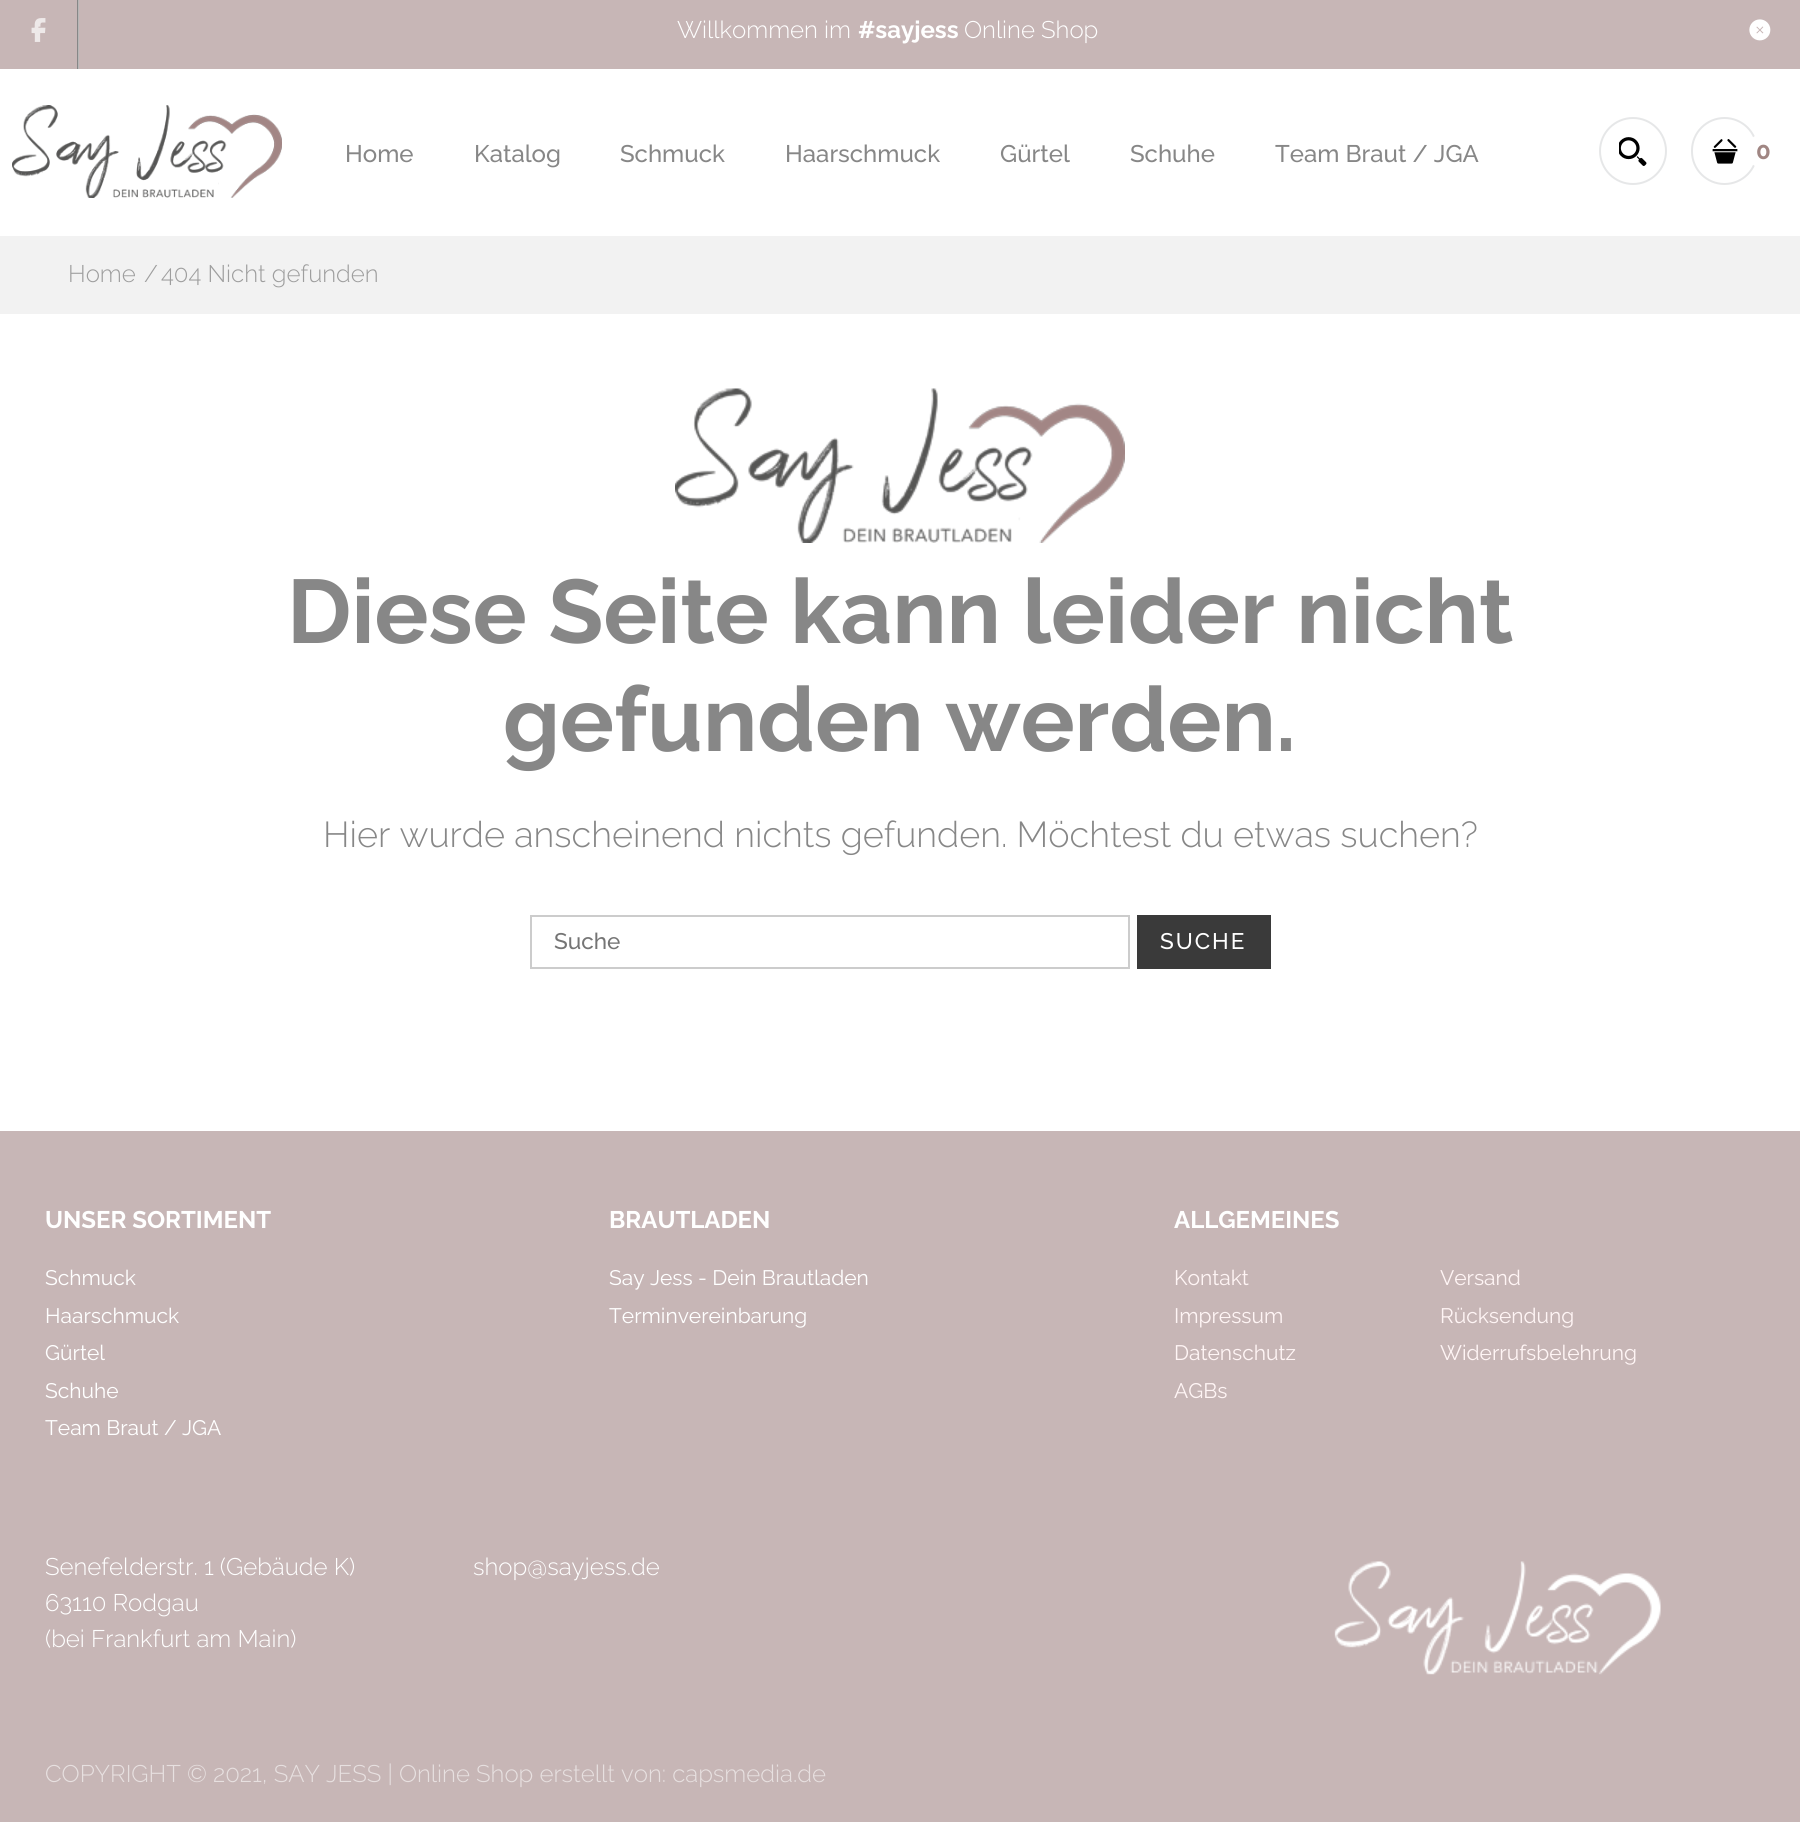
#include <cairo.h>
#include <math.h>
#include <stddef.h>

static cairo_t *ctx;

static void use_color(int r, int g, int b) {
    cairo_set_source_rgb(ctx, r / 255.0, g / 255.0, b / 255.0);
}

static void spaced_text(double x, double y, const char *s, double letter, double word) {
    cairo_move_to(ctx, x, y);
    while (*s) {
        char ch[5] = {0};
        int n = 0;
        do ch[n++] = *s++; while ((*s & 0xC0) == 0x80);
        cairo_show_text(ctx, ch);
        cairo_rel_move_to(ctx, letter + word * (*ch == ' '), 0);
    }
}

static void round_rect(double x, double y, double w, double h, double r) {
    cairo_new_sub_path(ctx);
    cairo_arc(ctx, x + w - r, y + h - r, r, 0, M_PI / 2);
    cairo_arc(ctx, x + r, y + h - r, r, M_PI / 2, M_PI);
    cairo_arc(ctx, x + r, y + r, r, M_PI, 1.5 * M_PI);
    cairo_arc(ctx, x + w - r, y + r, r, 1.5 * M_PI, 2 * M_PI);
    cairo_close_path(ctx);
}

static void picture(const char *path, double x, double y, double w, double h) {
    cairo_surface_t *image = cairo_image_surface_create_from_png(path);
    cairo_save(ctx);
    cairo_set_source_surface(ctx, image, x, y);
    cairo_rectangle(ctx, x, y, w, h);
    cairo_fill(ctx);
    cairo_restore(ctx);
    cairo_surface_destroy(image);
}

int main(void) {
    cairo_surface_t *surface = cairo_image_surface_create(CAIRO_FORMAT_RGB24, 1800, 1822);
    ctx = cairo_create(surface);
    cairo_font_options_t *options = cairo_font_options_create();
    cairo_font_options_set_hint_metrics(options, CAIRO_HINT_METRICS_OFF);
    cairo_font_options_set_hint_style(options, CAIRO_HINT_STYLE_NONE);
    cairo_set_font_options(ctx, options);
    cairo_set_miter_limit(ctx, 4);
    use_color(255, 255, 255);
    cairo_paint(ctx);
    use_color(199, 182, 182);
    cairo_rectangle(ctx, 79, 0, 1721, 69);
    cairo_fill(ctx);
    use_color(135, 135, 135);
    cairo_rectangle(ctx, 77, 0, 1, 69);
    cairo_fill(ctx);
    use_color(183, 183, 183);
    cairo_rectangle(ctx, 78, 0, 1, 69);
    cairo_fill(ctx);
    use_color(199, 182, 182);
    cairo_rectangle(ctx, 0, 0, 77, 69);
    cairo_fill(ctx);
    picture("img1.png", 31, 18, 15, 24);
    cairo_select_font_face(ctx, "Raleway Light", CAIRO_FONT_SLANT_NORMAL, CAIRO_FONT_WEIGHT_NORMAL);
    cairo_set_font_size(ctx, 24);
    use_color(255, 255, 255);
    cairo_move_to(ctx, 677, 38);
    cairo_show_text(ctx, "Willkommen im");
    cairo_select_font_face(ctx, "Raleway", CAIRO_FONT_SLANT_NORMAL, CAIRO_FONT_WEIGHT_BOLD);
    cairo_move_to(ctx, 858, 38);
    cairo_show_text(ctx, "#sayjess");
    cairo_select_font_face(ctx, "Raleway Light", CAIRO_FONT_SLANT_NORMAL, CAIRO_FONT_WEIGHT_NORMAL);
    cairo_move_to(ctx, 964, 38);
    cairo_show_text(ctx, "Online Shop");
    picture("img2.png", 1749, 19, 22, 22);
    picture("img3.png", 12, 105, 270, 93);
    cairo_select_font_face(ctx, "Raleway Medium", CAIRO_FONT_SLANT_NORMAL, CAIRO_FONT_WEIGHT_NORMAL);
    use_color(135, 135, 135);
    cairo_move_to(ctx, 345, 162);
    cairo_show_text(ctx, "Home");
    cairo_move_to(ctx, 474, 162);
    cairo_show_text(ctx, "Katalog");
    cairo_move_to(ctx, 620, 162);
    cairo_show_text(ctx, "Schmuck");
    cairo_move_to(ctx, 785, 162);
    cairo_show_text(ctx, "Haarschmuck");
    cairo_move_to(ctx, 1000, 162);
    cairo_show_text(ctx, "Gürtel");
    cairo_move_to(ctx, 1130, 162);
    cairo_show_text(ctx, "Schuhe");
    cairo_move_to(ctx, 1275, 162);
    cairo_show_text(ctx, "Team Braut / JGA");
    cairo_new_path(ctx);
    cairo_arc(ctx, 1633, 151, 33, 0, 2 * M_PI);
    use_color(230, 231, 232);
    cairo_stroke(ctx);
    picture("img4.png", 1619, 137, 28, 29);
    round_rect(1692, 118, 65, 66, 32.5);
    cairo_stroke(ctx);
    picture("img5.png", 1712, 139, 26, 25);
    use_color(255, 255, 255);
    round_rect(1746, 134, 35, 34, 17);
    cairo_fill(ctx);
    cairo_select_font_face(ctx, "Raleway", CAIRO_FONT_SLANT_NORMAL, CAIRO_FONT_WEIGHT_BOLD);
    use_color(160, 134, 131);
    cairo_move_to(ctx, 1756, 159);
    cairo_show_text(ctx, "0");
    use_color(242, 242, 242);
    cairo_rectangle(ctx, 0, 236, 1800, 78);
    cairo_fill(ctx);
    cairo_select_font_face(ctx, "Raleway Light", CAIRO_FONT_SLANT_NORMAL, CAIRO_FONT_WEIGHT_NORMAL);
    use_color(158, 158, 158);
    cairo_move_to(ctx, 68, 282);
    cairo_show_text(ctx, "Home");
    cairo_move_to(ctx, 144, 282);
    cairo_show_text(ctx, "/");
    cairo_move_to(ctx, 161, 282);
    cairo_show_text(ctx, "404 Nicht gefunden");
    picture("img6.png", 675, 388, 450, 155);
    cairo_select_font_face(ctx, "Raleway", CAIRO_FONT_SLANT_NORMAL, CAIRO_FONT_WEIGHT_BOLD);
    cairo_set_font_size(ctx, 90);
    use_color(135, 135, 135);
    cairo_move_to(ctx, 287, 643);
    cairo_show_text(ctx, "Diese Seite kann leider nicht");
    cairo_move_to(ctx, 503, 751);
    cairo_show_text(ctx, "gefunden werden.");
    cairo_select_font_face(ctx, "Raleway Light", CAIRO_FONT_SLANT_NORMAL, CAIRO_FONT_WEIGHT_NORMAL);
    cairo_set_font_size(ctx, 36);
    cairo_move_to(ctx, 323, 847);
    cairo_show_text(ctx, "Hier wurde anscheinend nichts gefunden. Möchtest du etwas suchen?");
    cairo_rectangle(ctx, 531, 916, 598, 52);
    use_color(204, 204, 204);
    cairo_stroke(ctx);
    cairo_select_font_face(ctx, "Raleway Medium", CAIRO_FONT_SLANT_NORMAL, CAIRO_FONT_WEIGHT_NORMAL);
    cairo_set_font_size(ctx, 22.5);
    use_color(117, 117, 117);
    cairo_move_to(ctx, 554, 949);
    cairo_show_text(ctx, "Suche");
    use_color(58, 58, 58);
    cairo_rectangle(ctx, 1137, 915, 134, 54);
    cairo_fill(ctx);
    use_color(255, 255, 255);
    spaced_text(1160, 949, "SUCHE", 2, 0);
    use_color(199, 182, 182);
    cairo_rectangle(ctx, 0, 1131, 1800, 691);
    cairo_fill(ctx);
    cairo_select_font_face(ctx, "Raleway", CAIRO_FONT_SLANT_NORMAL, CAIRO_FONT_WEIGHT_BOLD);
    cairo_set_font_size(ctx, 24);
    use_color(255, 255, 255);
    cairo_move_to(ctx, 45, 1228);
    cairo_show_text(ctx, "UNSER SORTIMENT");
    cairo_select_font_face(ctx, "Raleway", CAIRO_FONT_SLANT_NORMAL, CAIRO_FONT_WEIGHT_NORMAL);
    cairo_set_font_size(ctx, 21);
    cairo_move_to(ctx, 45, 1285);
    cairo_show_text(ctx, "Schmuck");
    cairo_move_to(ctx, 45, 1323);
    cairo_show_text(ctx, "Haarschmuck");
    cairo_move_to(ctx, 45, 1360);
    cairo_show_text(ctx, "Gürtel");
    cairo_move_to(ctx, 45, 1398);
    cairo_show_text(ctx, "Schuhe");
    cairo_move_to(ctx, 45, 1435);
    cairo_show_text(ctx, "Team Braut / JGA");
    cairo_select_font_face(ctx, "Raleway", CAIRO_FONT_SLANT_NORMAL, CAIRO_FONT_WEIGHT_BOLD);
    cairo_set_font_size(ctx, 24);
    cairo_move_to(ctx, 609, 1228);
    cairo_show_text(ctx, "BRAUTLADEN");
    cairo_select_font_face(ctx, "Raleway", CAIRO_FONT_SLANT_NORMAL, CAIRO_FONT_WEIGHT_NORMAL);
    cairo_set_font_size(ctx, 21);
    cairo_move_to(ctx, 609, 1285);
    cairo_show_text(ctx, "Say Jess - Dein Brautladen");
    cairo_move_to(ctx, 609, 1323);
    cairo_show_text(ctx, "Terminvereinbarung");
    cairo_select_font_face(ctx, "Raleway", CAIRO_FONT_SLANT_NORMAL, CAIRO_FONT_WEIGHT_BOLD);
    cairo_set_font_size(ctx, 24);
    cairo_move_to(ctx, 1174, 1228);
    cairo_show_text(ctx, "ALLGEMEINES");
    cairo_select_font_face(ctx, "Raleway", CAIRO_FONT_SLANT_NORMAL, CAIRO_FONT_WEIGHT_NORMAL);
    cairo_set_font_size(ctx, 21);
    use_color(255, 245, 245);
    cairo_move_to(ctx, 1174, 1285);
    cairo_show_text(ctx, "Kontakt");
    cairo_move_to(ctx, 1440, 1285);
    cairo_show_text(ctx, "Versand");
    cairo_move_to(ctx, 1174, 1323);
    cairo_show_text(ctx, "Impressum");
    cairo_move_to(ctx, 1440, 1323);
    cairo_show_text(ctx, "Rücksendung");
    cairo_move_to(ctx, 1174, 1360);
    cairo_show_text(ctx, "Datenschutz");
    cairo_move_to(ctx, 1440, 1360);
    cairo_show_text(ctx, "Widerrufsbelehrung");
    cairo_move_to(ctx, 1174, 1398);
    cairo_show_text(ctx, "AGBs");
    cairo_select_font_face(ctx, "Raleway Light", CAIRO_FONT_SLANT_NORMAL, CAIRO_FONT_WEIGHT_NORMAL);
    cairo_set_font_size(ctx, 24);
    use_color(255, 255, 255);
    cairo_move_to(ctx, 45, 1575);
    cairo_show_text(ctx, "Senefelderstr. 1 (Gebäude K)");
    cairo_move_to(ctx, 45, 1611);
    cairo_show_text(ctx, "63110 Rodgau");
    cairo_move_to(ctx, 45, 1647);
    cairo_show_text(ctx, "(bei Frankfurt am Main)");
    cairo_move_to(ctx, 473, 1575);
    cairo_show_text(ctx, "shop@sayjess.de");
    picture("img7.png", 1334, 1561, 327, 114);
    use_color(231, 224, 224);
    cairo_move_to(ctx, 45, 1782);
    cairo_show_text(ctx, "COPYRIGHT © 2021, SAY JESS | Online Shop erstellt von: capsmedia.de");
    cairo_surface_write_to_png(surface, "result.png");
    cairo_font_options_destroy(options);
    cairo_destroy(ctx);
    cairo_surface_destroy(surface);
    return 0;
}
